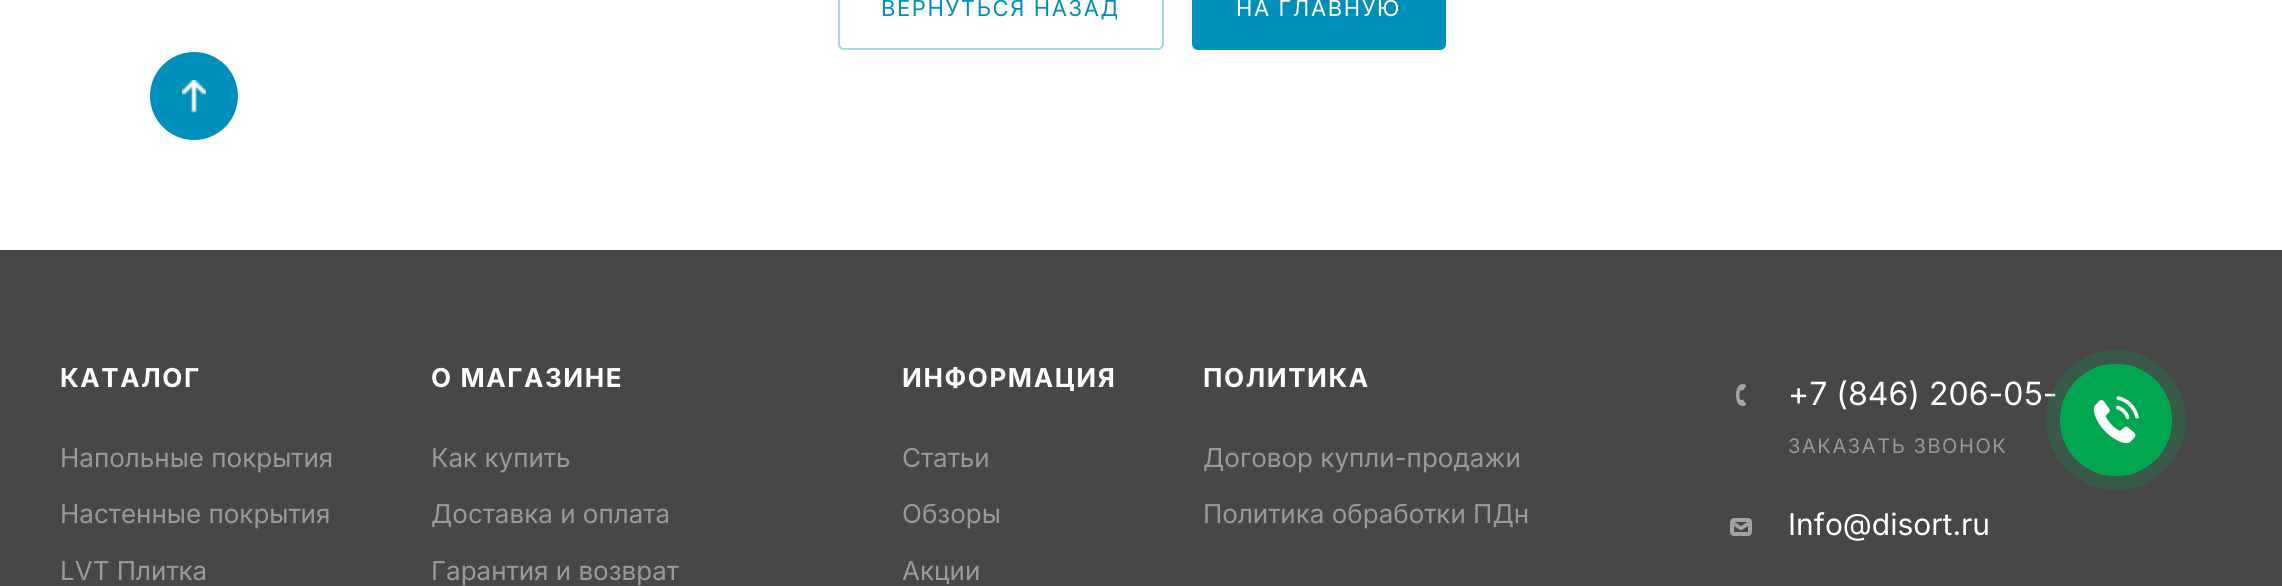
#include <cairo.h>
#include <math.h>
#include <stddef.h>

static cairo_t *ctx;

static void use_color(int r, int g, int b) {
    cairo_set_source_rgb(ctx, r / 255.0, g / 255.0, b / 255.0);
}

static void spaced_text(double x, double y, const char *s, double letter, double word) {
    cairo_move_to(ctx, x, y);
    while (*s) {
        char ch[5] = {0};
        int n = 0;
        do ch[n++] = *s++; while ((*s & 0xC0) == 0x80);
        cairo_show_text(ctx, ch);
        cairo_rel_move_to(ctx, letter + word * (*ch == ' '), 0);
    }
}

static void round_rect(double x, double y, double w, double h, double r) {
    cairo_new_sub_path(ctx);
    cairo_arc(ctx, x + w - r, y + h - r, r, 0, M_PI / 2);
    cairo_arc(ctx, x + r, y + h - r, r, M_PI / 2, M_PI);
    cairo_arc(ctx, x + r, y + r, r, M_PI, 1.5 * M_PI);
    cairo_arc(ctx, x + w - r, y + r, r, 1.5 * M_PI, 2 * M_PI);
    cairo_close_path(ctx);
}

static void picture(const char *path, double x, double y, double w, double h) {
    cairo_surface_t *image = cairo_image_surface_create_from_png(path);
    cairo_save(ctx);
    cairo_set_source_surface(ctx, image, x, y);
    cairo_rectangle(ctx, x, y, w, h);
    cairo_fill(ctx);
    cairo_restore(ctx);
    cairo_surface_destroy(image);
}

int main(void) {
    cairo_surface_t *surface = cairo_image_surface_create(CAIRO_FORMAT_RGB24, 2282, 586);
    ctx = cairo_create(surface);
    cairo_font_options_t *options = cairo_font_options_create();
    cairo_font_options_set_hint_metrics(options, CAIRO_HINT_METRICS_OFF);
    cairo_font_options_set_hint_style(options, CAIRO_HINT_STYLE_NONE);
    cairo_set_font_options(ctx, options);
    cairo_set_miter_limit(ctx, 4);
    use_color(255, 255, 255);
    cairo_paint(ctx);
    round_rect(839, -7, 324, 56, 5);
    use_color(166, 217, 232);
    cairo_stroke(ctx);
    cairo_select_font_face(ctx, "Inter", CAIRO_FONT_SLANT_NORMAL, CAIRO_FONT_WEIGHT_NORMAL);
    cairo_set_font_size(ctx, 22);
    use_color(0, 142, 187);
    spaced_text(881, 16, "ВЕРНУТЬСЯ НАЗАД", 1.6, 0);
    round_rect(1193, -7, 252, 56, 5);
    cairo_fill_preserve(ctx);
    cairo_stroke(ctx);
    use_color(255, 255, 255);
    spaced_text(1236, 16, "НА ГЛАВНУЮ", 1.6, 0);
    use_color(0, 142, 187);
    cairo_new_path(ctx);
    cairo_arc(ctx, 194, 96, 44, 0, 2 * M_PI);
    cairo_fill(ctx);
    picture("img1.png", 182, 80, 24, 33);
    use_color(71, 71, 71);
    cairo_rectangle(ctx, 0, 250, 2282, 336);
    cairo_fill(ctx);
    cairo_select_font_face(ctx, "Inter", CAIRO_FONT_SLANT_NORMAL, CAIRO_FONT_WEIGHT_BOLD);
    cairo_set_font_size(ctx, 26);
    use_color(255, 255, 255);
    spaced_text(60, 387, "КАТАЛОГ", 1.6, 0);
    cairo_select_font_face(ctx, "Inter", CAIRO_FONT_SLANT_NORMAL, CAIRO_FONT_WEIGHT_NORMAL);
    use_color(153, 153, 153);
    cairo_move_to(ctx, 60, 467);
    cairo_show_text(ctx, "Напольные покрытия");
    cairo_move_to(ctx, 60, 523);
    cairo_show_text(ctx, "Настенные покрытия");
    cairo_move_to(ctx, 60, 580);
    cairo_show_text(ctx, "LVT Плитка");
    cairo_select_font_face(ctx, "Inter", CAIRO_FONT_SLANT_NORMAL, CAIRO_FONT_WEIGHT_BOLD);
    use_color(255, 255, 255);
    spaced_text(431, 387, "О МАГАЗИНЕ", 1.6, 0);
    cairo_select_font_face(ctx, "Inter", CAIRO_FONT_SLANT_NORMAL, CAIRO_FONT_WEIGHT_NORMAL);
    use_color(153, 153, 153);
    cairo_move_to(ctx, 431, 467);
    cairo_show_text(ctx, "Как купить");
    cairo_move_to(ctx, 431, 523);
    cairo_show_text(ctx, "Доставка и оплата");
    cairo_move_to(ctx, 431, 580);
    cairo_show_text(ctx, "Гарантия и возврат");
    cairo_select_font_face(ctx, "Inter", CAIRO_FONT_SLANT_NORMAL, CAIRO_FONT_WEIGHT_BOLD);
    use_color(255, 255, 255);
    spaced_text(902, 387, "ИНФОРМАЦИЯ", 1.6, 0);
    cairo_select_font_face(ctx, "Inter", CAIRO_FONT_SLANT_NORMAL, CAIRO_FONT_WEIGHT_NORMAL);
    use_color(153, 153, 153);
    cairo_move_to(ctx, 902, 467);
    cairo_show_text(ctx, "Статьи");
    cairo_move_to(ctx, 902, 523);
    cairo_show_text(ctx, "Обзоры");
    cairo_move_to(ctx, 902, 580);
    cairo_show_text(ctx, "Акции");
    cairo_select_font_face(ctx, "Inter", CAIRO_FONT_SLANT_NORMAL, CAIRO_FONT_WEIGHT_BOLD);
    use_color(255, 255, 255);
    spaced_text(1203, 387, "ПОЛИТИКА", 1.6, 0);
    cairo_select_font_face(ctx, "Inter", CAIRO_FONT_SLANT_NORMAL, CAIRO_FONT_WEIGHT_NORMAL);
    use_color(153, 153, 153);
    cairo_move_to(ctx, 1203, 467);
    cairo_show_text(ctx, "Договор купли-продажи");
    cairo_move_to(ctx, 1203, 523);
    cairo_show_text(ctx, "Политика обработки ПДн");
    picture("img2.png", 1736, 384, 10, 22);
    cairo_set_font_size(ctx, 32);
    use_color(255, 255, 255);
    cairo_move_to(ctx, 1788, 405);
    cairo_show_text(ctx, "+7 (846) 206-05-");
    cairo_set_font_size(ctx, 20);
    use_color(153, 153, 153);
    spaced_text(1788, 453, "ЗАКАЗАТЬ ЗВОНОК", 1.6, 0);
    picture("img3.png", 1730, 518, 22, 18);
    cairo_set_font_size(ctx, 30);
    use_color(255, 255, 255);
    cairo_move_to(ctx, 1788, 535);
    cairo_show_text(ctx, "Info@disort.ru");
    cairo_set_source_rgba(ctx, 0, 0.651, 0.314, 0.2);
    cairo_new_path(ctx);
    cairo_arc(ctx, 2116, 420, 70, 0, 2 * M_PI);
    cairo_fill(ctx);
    cairo_arc(ctx, 2116, 420, 55, 0, 2 * M_PI);
    use_color(0, 166, 80);
    cairo_stroke(ctx);
    cairo_arc(ctx, 2116, 420, 56, 0, 2 * M_PI);
    cairo_fill(ctx);
    picture("img4.png", 2093, 396, 46, 48);
    cairo_surface_write_to_png(surface, "result.png");
    cairo_font_options_destroy(options);
    cairo_destroy(ctx);
    cairo_surface_destroy(surface);
    return 0;
}
